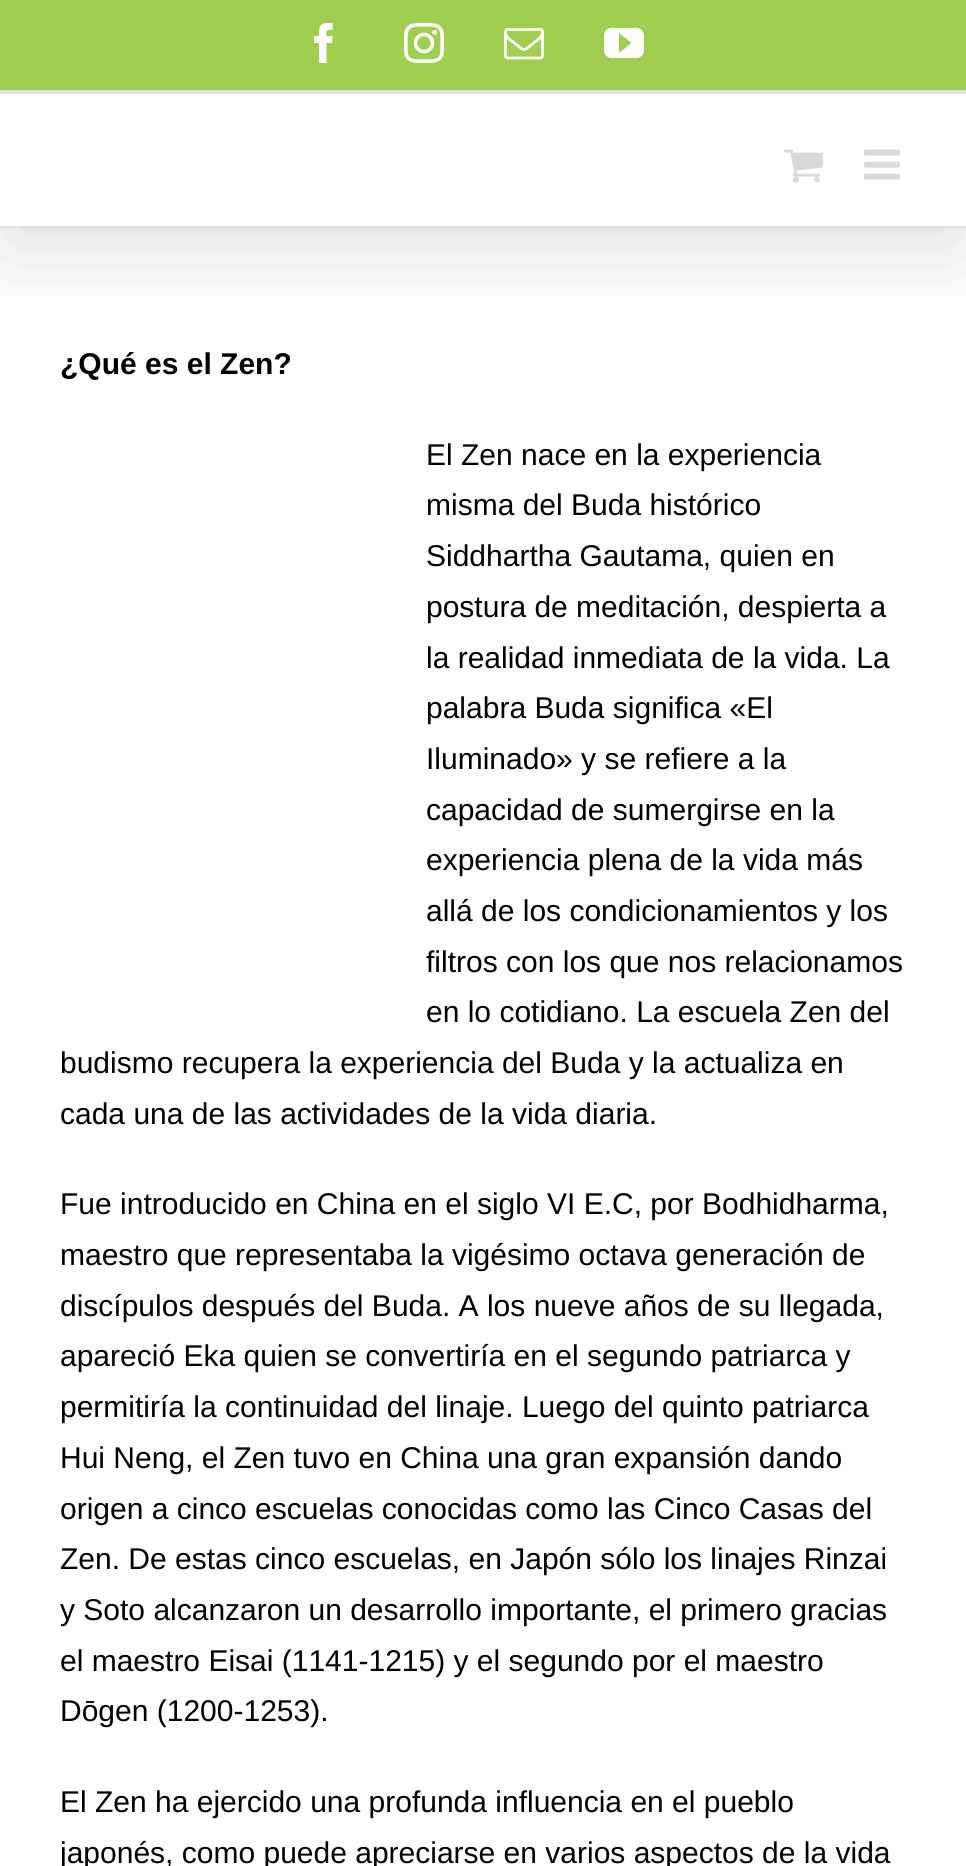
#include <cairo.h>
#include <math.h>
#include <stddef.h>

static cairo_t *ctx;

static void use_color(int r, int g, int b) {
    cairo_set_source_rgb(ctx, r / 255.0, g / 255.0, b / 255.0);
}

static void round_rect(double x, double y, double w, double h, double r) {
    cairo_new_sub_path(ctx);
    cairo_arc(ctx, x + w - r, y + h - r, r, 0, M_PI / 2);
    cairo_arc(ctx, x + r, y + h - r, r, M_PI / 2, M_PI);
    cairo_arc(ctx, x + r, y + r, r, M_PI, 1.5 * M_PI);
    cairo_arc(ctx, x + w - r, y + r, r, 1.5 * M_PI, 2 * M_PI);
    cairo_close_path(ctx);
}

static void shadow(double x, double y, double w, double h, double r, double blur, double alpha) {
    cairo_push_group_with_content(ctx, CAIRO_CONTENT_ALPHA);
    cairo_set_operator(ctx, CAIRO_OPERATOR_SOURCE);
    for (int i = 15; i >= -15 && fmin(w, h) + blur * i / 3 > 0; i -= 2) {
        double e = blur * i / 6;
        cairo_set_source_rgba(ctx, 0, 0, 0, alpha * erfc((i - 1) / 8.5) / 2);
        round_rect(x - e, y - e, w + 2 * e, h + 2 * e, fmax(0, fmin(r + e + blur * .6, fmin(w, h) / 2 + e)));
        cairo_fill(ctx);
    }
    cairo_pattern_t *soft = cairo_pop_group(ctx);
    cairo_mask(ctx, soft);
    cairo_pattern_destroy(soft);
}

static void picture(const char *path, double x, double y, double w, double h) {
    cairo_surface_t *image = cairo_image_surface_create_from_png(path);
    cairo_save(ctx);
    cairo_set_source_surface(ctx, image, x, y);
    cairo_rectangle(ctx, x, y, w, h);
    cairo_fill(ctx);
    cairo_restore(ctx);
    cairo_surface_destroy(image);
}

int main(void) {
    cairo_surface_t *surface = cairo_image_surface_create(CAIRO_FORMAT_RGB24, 966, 1866);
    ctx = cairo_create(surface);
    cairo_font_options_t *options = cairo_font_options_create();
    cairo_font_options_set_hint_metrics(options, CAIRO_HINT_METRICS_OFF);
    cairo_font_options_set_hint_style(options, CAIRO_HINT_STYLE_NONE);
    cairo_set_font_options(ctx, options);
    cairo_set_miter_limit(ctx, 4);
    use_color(255, 255, 255);
    cairo_paint(ctx);
    cairo_save(ctx);
    cairo_rectangle(ctx, 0, 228, 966, 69);
    cairo_clip(ctx);
    use_color(0, 0, 0);
    shadow(4, 24, 958, 220, 0, 50, 0.14);
    cairo_restore(ctx);
    use_color(160, 206, 78);
    cairo_rectangle(ctx, 0, 0, 966, 90);
    cairo_fill(ctx);
    use_color(225, 225, 225);
    cairo_rectangle(ctx, 0, 90, 966, 4);
    cairo_fill(ctx);
    picture("img1.png", 314, 23, 19, 40);
    picture("img2.png", 404, 23, 40, 40);
    picture("img3.png", 504, 28, 40, 32);
    picture("img4.png", 604, 28, 40, 30);
    cairo_rectangle(ctx, 0, 226, 966, 2);
    cairo_fill(ctx);
    picture("img5.png", 784, 149, 39, 34);
    picture("img6.png", 864, 149, 36, 31);
    cairo_select_font_face(ctx, "Liberation Sans", CAIRO_FONT_SLANT_NORMAL, CAIRO_FONT_WEIGHT_BOLD);
    cairo_set_font_size(ctx, 30);
    use_color(0, 0, 0);
    cairo_move_to(ctx, 60, 374);
    cairo_show_text(ctx, "¿Qué es el Zen?");
    cairo_select_font_face(ctx, "Liberation Sans", CAIRO_FONT_SLANT_NORMAL, CAIRO_FONT_WEIGHT_NORMAL);
    cairo_move_to(ctx, 426, 465);
    cairo_show_text(ctx, "El Zen nace en la experiencia");
    cairo_move_to(ctx, 426, 515);
    cairo_show_text(ctx, "misma del Buda histórico");
    cairo_move_to(ctx, 426, 566);
    cairo_show_text(ctx, "Siddhartha Gautama, quien en");
    cairo_move_to(ctx, 426, 617);
    cairo_show_text(ctx, "postura de meditación, despierta a");
    cairo_move_to(ctx, 426, 668);
    cairo_show_text(ctx, "la realidad inmediata de la vida. La");
    cairo_move_to(ctx, 426, 718);
    cairo_show_text(ctx, "palabra Buda significa «El");
    cairo_move_to(ctx, 426, 769);
    cairo_show_text(ctx, "Iluminado» y se refiere a la");
    cairo_move_to(ctx, 426, 820);
    cairo_show_text(ctx, "capacidad de sumergirse en la");
    cairo_move_to(ctx, 426, 870);
    cairo_show_text(ctx, "experiencia plena de la vida más");
    cairo_move_to(ctx, 426, 921);
    cairo_show_text(ctx, "allá de los condicionamientos y los");
    cairo_move_to(ctx, 426, 972);
    cairo_show_text(ctx, "filtros con los que nos relacionamos");
    cairo_move_to(ctx, 426, 1022);
    cairo_show_text(ctx, "en lo cotidiano. La escuela Zen del");
    cairo_move_to(ctx, 60, 1073);
    cairo_show_text(ctx, "budismo recupera la experiencia del Buda y la actualiza en");
    cairo_move_to(ctx, 60, 1124);
    cairo_show_text(ctx, "cada una de las actividades de la vida diaria.");
    cairo_move_to(ctx, 60, 1214);
    cairo_show_text(ctx, "Fue introducido en China en el siglo VI E.C, por Bodhidharma,");
    cairo_move_to(ctx, 60, 1265);
    cairo_show_text(ctx, "maestro que representaba la vigésimo octava generación de");
    cairo_move_to(ctx, 60, 1316);
    cairo_show_text(ctx, "discípulos después del Buda. A los nueve años de su llegada,");
    cairo_move_to(ctx, 60, 1366);
    cairo_show_text(ctx, "apareció Eka quien se convertiría en el segundo patriarca y");
    cairo_move_to(ctx, 60, 1417);
    cairo_show_text(ctx, "permitiría la continuidad del linaje. Luego del quinto patriarca");
    cairo_move_to(ctx, 60, 1468);
    cairo_show_text(ctx, "Hui Neng, el Zen tuvo en China una gran expansión dando");
    cairo_move_to(ctx, 60, 1519);
    cairo_show_text(ctx, "origen a cinco escuelas conocidas como las Cinco Casas del");
    cairo_move_to(ctx, 60, 1569);
    cairo_show_text(ctx, "Zen. De estas cinco escuelas, en Japón sólo los linajes Rinzai");
    cairo_move_to(ctx, 60, 1620);
    cairo_show_text(ctx, "y Soto alcanzaron un desarrollo importante, el primero gracias");
    cairo_move_to(ctx, 60, 1671);
    cairo_show_text(ctx, "el maestro Eisai (1141-1215) y el segundo por el maestro");
    cairo_move_to(ctx, 60, 1721);
    cairo_show_text(ctx, "Dōgen (1200-1253).");
    cairo_move_to(ctx, 60, 1812);
    cairo_show_text(ctx, "El Zen ha ejercido una profunda influencia en el pueblo");
    cairo_move_to(ctx, 60, 1863);
    cairo_show_text(ctx, "japonés, como puede apreciarse en varios aspectos de la vida");
    cairo_surface_write_to_png(surface, "result.png");
    cairo_font_options_destroy(options);
    cairo_destroy(ctx);
    cairo_surface_destroy(surface);
    return 0;
}
